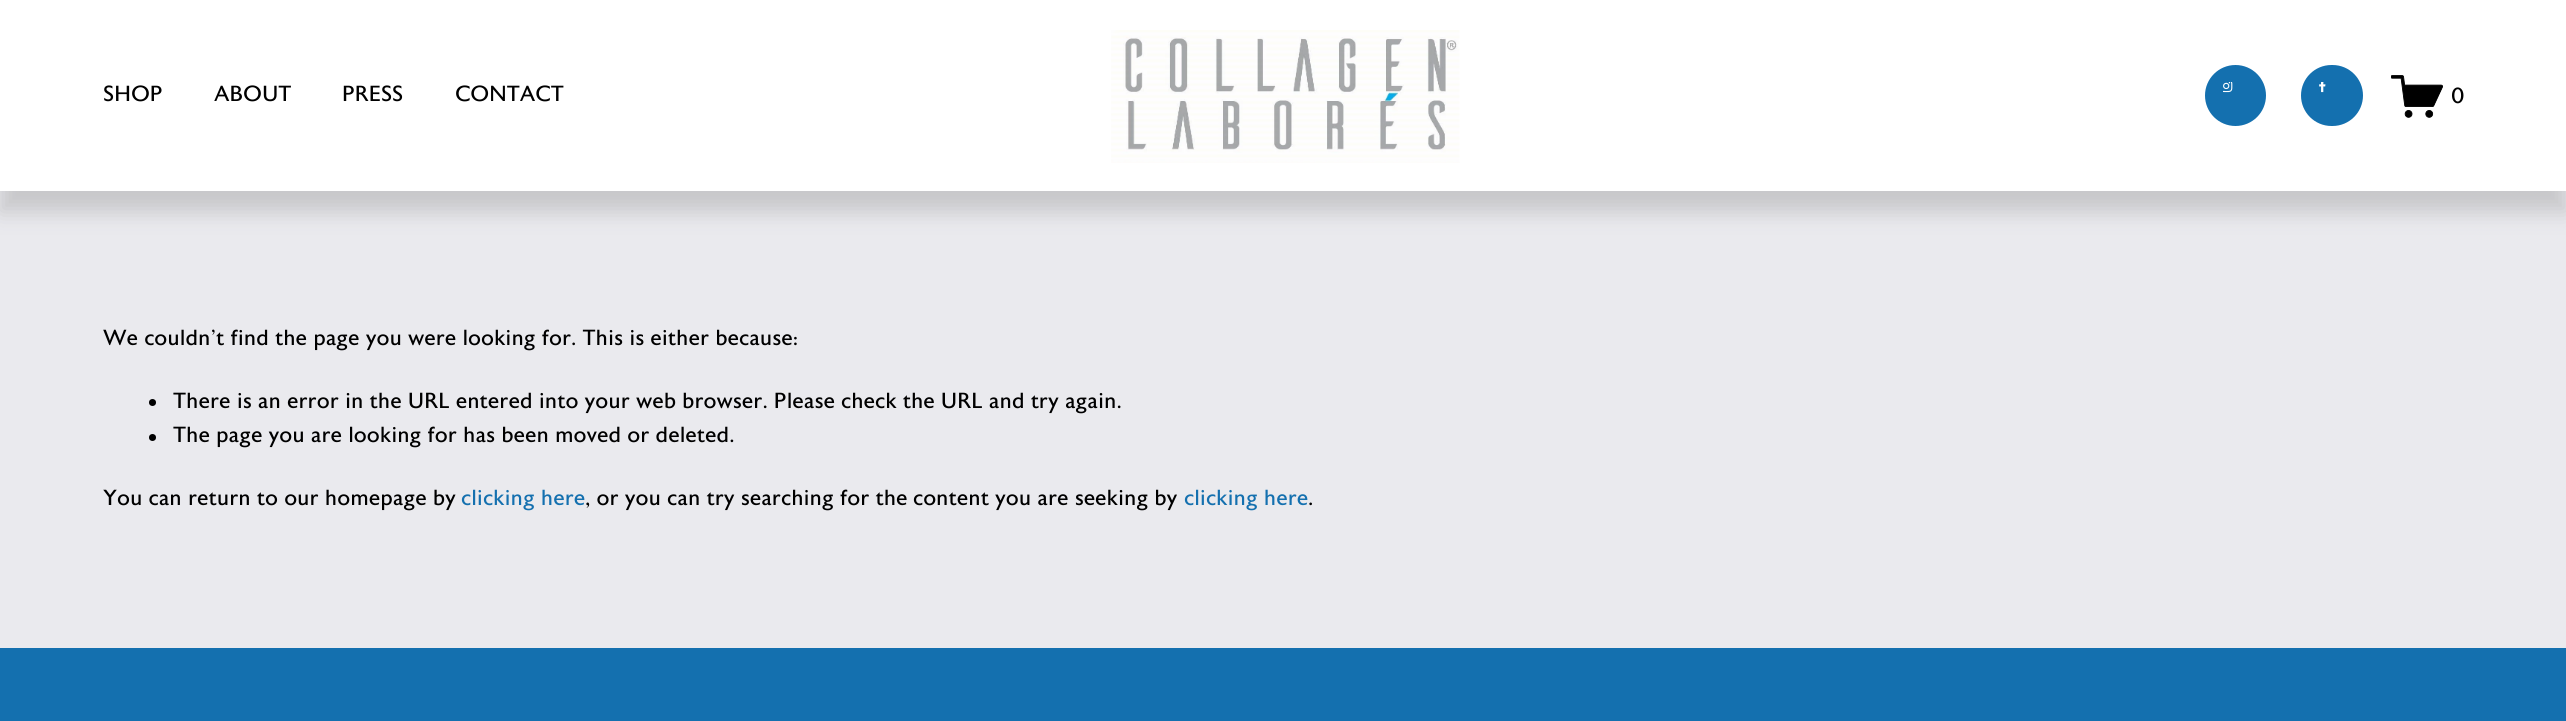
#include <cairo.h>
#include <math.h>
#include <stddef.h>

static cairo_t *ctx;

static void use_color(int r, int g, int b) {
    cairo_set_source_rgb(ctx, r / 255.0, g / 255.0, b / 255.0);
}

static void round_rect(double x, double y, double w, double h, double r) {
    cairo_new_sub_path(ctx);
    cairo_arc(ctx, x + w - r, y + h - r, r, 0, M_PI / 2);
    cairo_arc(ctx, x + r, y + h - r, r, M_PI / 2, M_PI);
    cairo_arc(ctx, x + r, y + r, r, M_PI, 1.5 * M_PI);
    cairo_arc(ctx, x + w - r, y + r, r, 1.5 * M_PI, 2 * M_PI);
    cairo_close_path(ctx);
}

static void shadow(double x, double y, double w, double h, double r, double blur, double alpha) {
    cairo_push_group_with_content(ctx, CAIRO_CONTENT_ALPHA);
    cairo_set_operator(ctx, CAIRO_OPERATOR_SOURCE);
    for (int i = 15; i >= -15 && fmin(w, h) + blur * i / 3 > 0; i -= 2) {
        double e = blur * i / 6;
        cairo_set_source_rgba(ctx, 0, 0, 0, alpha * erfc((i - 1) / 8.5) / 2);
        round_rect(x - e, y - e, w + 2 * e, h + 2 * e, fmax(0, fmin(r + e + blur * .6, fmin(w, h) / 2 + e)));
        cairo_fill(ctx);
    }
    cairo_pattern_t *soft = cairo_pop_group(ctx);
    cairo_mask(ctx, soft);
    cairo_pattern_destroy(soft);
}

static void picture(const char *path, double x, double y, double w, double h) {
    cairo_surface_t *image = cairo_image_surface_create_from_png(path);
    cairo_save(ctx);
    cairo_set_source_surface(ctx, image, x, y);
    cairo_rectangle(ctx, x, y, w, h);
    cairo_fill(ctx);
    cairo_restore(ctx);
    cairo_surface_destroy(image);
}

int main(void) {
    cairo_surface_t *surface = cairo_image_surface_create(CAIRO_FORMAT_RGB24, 2566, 721);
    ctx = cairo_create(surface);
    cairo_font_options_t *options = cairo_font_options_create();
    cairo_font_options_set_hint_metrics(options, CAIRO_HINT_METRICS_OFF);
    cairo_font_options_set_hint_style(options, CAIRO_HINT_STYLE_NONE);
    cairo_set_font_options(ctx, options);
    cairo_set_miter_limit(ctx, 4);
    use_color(234, 234, 238);
    cairo_paint(ctx);
    use_color(199, 199, 202);
    shadow(0, 21, 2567, 191, 0, 10.5, 1);
    use_color(255, 255, 255);
    cairo_rectangle(ctx, 0, 0, 2566, 191);
    cairo_fill(ctx);
    cairo_select_font_face(ctx, "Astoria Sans", CAIRO_FONT_SLANT_NORMAL, CAIRO_FONT_WEIGHT_NORMAL);
    cairo_set_font_size(ctx, 21.85);
    use_color(0, 0, 0);
    cairo_move_to(ctx, 103, 101);
    cairo_show_text(ctx, "SHOP");
    cairo_move_to(ctx, 214, 101);
    cairo_show_text(ctx, "ABOUT");
    cairo_move_to(ctx, 342, 101);
    cairo_show_text(ctx, "PRESS");
    cairo_move_to(ctx, 455, 101);
    cairo_show_text(ctx, "CONTACT");
    picture("img1.png", 1111, 30, 349, 133);
    use_color(20, 112, 175);
    cairo_arc(ctx, 2235.5, 95.5, 30.5, 0, 2 * M_PI);
    cairo_fill(ctx);
    picture("img2.png", 2223, 82, 10, 11);
    round_rect(2301, 65, 62, 61, 30.5);
    cairo_fill(ctx);
    picture("img3.png", 2319, 82, 7, 11);
    picture("img4.png", 2391, 75, 52, 43);
    use_color(0, 0, 0);
    cairo_move_to(ctx, 2451, 103);
    cairo_show_text(ctx, "0");
    cairo_move_to(ctx, 103, 345);
    cairo_show_text(ctx, "We couldn't find the page you were looking for. This is either because:");
    cairo_new_path(ctx);
    cairo_arc(ctx, 152.5, 402.5, 3.5, 0, 2 * M_PI);
    cairo_fill(ctx);
    cairo_move_to(ctx, 173, 408);
    cairo_show_text(ctx, "There is an error in the URL entered into your web browser. Please check the URL and try again.");
    cairo_new_path(ctx);
    cairo_arc(ctx, 152.5, 437.5, 3.5, 0, 2 * M_PI);
    cairo_fill(ctx);
    cairo_move_to(ctx, 173, 442);
    cairo_show_text(ctx, "The page you are looking for has been moved or deleted.");
    cairo_move_to(ctx, 103, 505);
    cairo_show_text(ctx, "You can return to our homepage by");
    use_color(20, 112, 175);
    cairo_move_to(ctx, 461, 505);
    cairo_show_text(ctx, "clicking here");
    use_color(0, 0, 0);
    cairo_move_to(ctx, 585, 505);
    cairo_show_text(ctx, ", or you can try searching for the");
    cairo_move_to(ctx, 913, 505);
    cairo_show_text(ctx, "content you are seeking by");
    use_color(20, 112, 175);
    cairo_move_to(ctx, 1184, 505);
    cairo_show_text(ctx, "clicking here");
    use_color(0, 0, 0);
    cairo_move_to(ctx, 1308, 505);
    cairo_show_text(ctx, ".");
    use_color(20, 112, 175);
    cairo_rectangle(ctx, 0, 648, 2566, 73);
    cairo_fill(ctx);
    cairo_surface_write_to_png(surface, "result.png");
    cairo_font_options_destroy(options);
    cairo_destroy(ctx);
    cairo_surface_destroy(surface);
    return 0;
}
